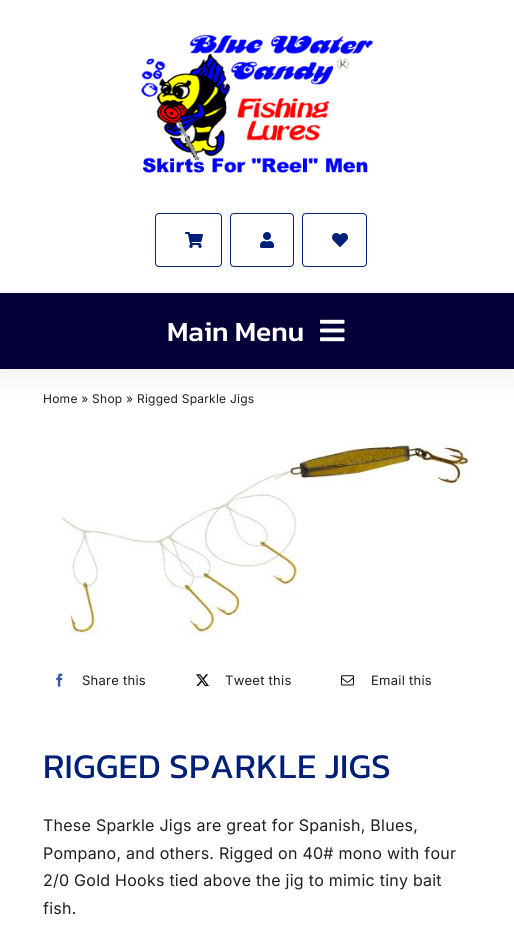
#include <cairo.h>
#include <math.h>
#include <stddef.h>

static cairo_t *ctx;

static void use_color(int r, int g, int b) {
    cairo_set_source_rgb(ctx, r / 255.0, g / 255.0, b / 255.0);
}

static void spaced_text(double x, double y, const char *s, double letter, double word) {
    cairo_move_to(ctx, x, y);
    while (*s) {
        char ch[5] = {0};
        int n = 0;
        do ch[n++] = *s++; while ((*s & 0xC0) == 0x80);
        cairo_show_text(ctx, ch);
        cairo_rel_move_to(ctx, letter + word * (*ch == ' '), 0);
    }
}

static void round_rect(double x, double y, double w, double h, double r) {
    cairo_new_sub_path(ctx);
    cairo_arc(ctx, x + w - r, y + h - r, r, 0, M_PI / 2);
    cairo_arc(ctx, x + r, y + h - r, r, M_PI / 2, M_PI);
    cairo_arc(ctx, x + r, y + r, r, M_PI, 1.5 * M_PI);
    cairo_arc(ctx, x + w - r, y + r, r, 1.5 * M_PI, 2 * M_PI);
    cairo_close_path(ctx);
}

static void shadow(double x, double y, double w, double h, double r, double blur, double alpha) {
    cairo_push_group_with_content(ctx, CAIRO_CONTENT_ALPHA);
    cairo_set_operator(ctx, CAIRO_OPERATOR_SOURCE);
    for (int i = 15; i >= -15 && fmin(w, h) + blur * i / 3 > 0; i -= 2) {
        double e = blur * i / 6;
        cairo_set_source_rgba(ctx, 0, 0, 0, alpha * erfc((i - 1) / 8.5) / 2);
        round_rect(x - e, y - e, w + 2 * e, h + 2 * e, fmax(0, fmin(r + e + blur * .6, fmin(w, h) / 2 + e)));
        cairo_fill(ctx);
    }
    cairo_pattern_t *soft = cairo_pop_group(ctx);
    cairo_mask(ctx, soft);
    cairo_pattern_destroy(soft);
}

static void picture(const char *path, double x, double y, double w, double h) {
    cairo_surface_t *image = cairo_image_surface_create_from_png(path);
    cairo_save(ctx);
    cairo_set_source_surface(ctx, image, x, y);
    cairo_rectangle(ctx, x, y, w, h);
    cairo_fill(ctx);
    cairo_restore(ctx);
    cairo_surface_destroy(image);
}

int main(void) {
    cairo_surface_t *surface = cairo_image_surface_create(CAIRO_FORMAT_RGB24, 514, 943);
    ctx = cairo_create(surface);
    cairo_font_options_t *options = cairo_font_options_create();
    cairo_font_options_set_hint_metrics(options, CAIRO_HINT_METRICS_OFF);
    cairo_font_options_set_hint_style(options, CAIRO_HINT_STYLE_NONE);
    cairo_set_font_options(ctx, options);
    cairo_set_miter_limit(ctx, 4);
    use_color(255, 255, 255);
    cairo_paint(ctx);
    use_color(34, 27, 27);
    shadow(-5, 298, 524, 86, 0, 7.5, 0.05);
    use_color(249, 249, 251);
    cairo_rectangle(ctx, 0, 292, 514, 1);
    cairo_fill(ctx);
    picture("img1.png", 140, 34, 234, 139);
    round_rect(155.5, 213.5, 66, 53, 3.5);
    use_color(0, 31, 119);
    cairo_set_line_width(ctx, 1);
    cairo_stroke(ctx);
    picture("img2.png", 185, 232, 18, 16);
    round_rect(230.5, 213.5, 63, 53, 3.5);
    cairo_stroke(ctx);
    picture("img3.png", 260, 232, 14, 16);
    round_rect(302.5, 213.5, 64, 53, 3.5);
    cairo_stroke(ctx);
    picture("img4.png", 332, 233, 16, 14);
    use_color(3, 0, 55);
    cairo_rectangle(ctx, 0, 293, 514, 76);
    cairo_fill(ctx);
    cairo_select_font_face(ctx, "Kanit Medium", CAIRO_FONT_SLANT_NORMAL, CAIRO_FONT_WEIGHT_NORMAL);
    cairo_set_font_size(ctx, 28);
    use_color(255, 255, 255);
    cairo_move_to(ctx, 167, 341);
    cairo_show_text(ctx, "Main Menu");
    picture("img5.png", 320, 319, 25, 23);
    cairo_select_font_face(ctx, "Inter", CAIRO_FONT_SLANT_NORMAL, CAIRO_FONT_WEIGHT_NORMAL);
    cairo_set_font_size(ctx, 12);
    use_color(35, 28, 28);
    spaced_text(43, 403, "Home » Shop » Rigged Sparkle Jigs", 0.25, 0);
    picture("img6.png", 61, 443, 410, 193);
    picture("img7.png", 56, 673, 7, 14);
    cairo_set_font_size(ctx, 13);
    spaced_text(82, 685, "Share this", 0.25, 0);
    picture("img8.png", 196, 674, 13, 12);
    spaced_text(225, 685, "Tweet this", 0.25, 0);
    picture("img9.png", 341, 675, 13, 11);
    spaced_text(371, 685, "Email this", 0.25, 0);
    cairo_select_font_face(ctx, "Kanit", CAIRO_FONT_SLANT_NORMAL, CAIRO_FONT_WEIGHT_NORMAL);
    cairo_set_font_size(ctx, 35);
    use_color(0, 31, 119);
    spaced_text(43, 778, "RIGGED SPARKLE JIGS", 0.25, 0);
    cairo_select_font_face(ctx, "Inter", CAIRO_FONT_SLANT_NORMAL, CAIRO_FONT_WEIGHT_NORMAL);
    cairo_set_font_size(ctx, 16);
    use_color(35, 28, 28);
    spaced_text(43, 831, "These Sparkle Jigs are great for Spanish, Blues,", 0.25, 0);
    spaced_text(43, 859, "Pompano, and others. Rigged on 40# mono with four", 0.25, 0);
    spaced_text(43, 886, "2/0 Gold Hooks tied above the jig to mimic tiny bait", 0.25, 0);
    spaced_text(43, 914, "fish.", 0.25, 0);
    cairo_surface_write_to_png(surface, "result.png");
    cairo_font_options_destroy(options);
    cairo_destroy(ctx);
    cairo_surface_destroy(surface);
    return 0;
}
